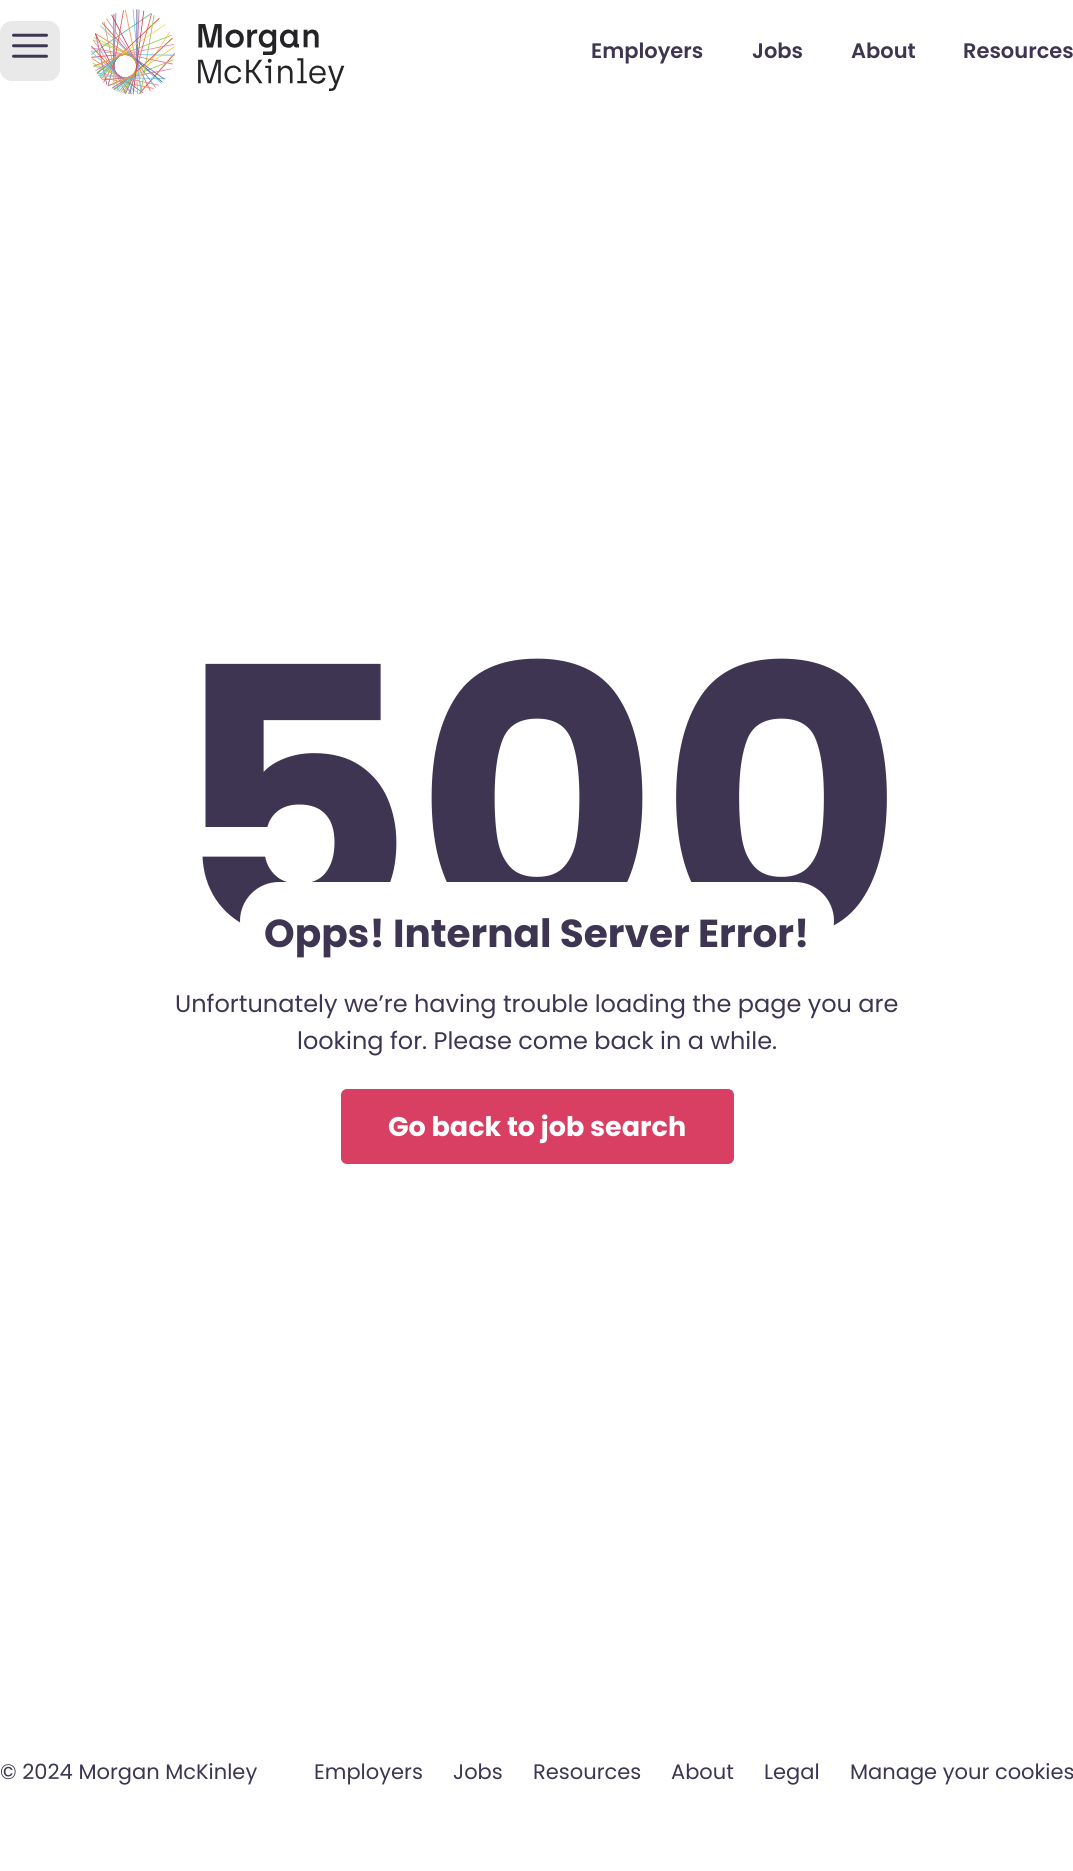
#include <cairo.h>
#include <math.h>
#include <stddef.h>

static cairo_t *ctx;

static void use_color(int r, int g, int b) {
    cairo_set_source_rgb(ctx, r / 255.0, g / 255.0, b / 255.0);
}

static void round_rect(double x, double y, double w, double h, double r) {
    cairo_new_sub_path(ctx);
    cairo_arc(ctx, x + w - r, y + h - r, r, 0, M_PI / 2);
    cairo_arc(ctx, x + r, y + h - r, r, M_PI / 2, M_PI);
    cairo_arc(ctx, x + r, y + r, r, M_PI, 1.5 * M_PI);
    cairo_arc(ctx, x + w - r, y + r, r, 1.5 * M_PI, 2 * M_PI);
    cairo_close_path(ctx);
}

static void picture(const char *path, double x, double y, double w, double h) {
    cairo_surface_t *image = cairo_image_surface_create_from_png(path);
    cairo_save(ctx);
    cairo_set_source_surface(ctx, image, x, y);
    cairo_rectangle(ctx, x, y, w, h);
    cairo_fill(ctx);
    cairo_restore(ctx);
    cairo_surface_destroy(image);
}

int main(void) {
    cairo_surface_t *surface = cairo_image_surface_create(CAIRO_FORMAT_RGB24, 1073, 1871);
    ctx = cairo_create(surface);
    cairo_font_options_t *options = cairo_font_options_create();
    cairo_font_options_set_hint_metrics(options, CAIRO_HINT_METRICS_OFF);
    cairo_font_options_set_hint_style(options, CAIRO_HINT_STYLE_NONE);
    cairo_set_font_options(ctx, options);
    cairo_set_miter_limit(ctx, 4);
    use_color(255, 255, 255);
    cairo_paint(ctx);
    use_color(233, 233, 233);
    round_rect(0, 21, 60, 60, 12);
    cairo_fill(ctx);
    picture("img1.png", 12, 33, 36, 25);
    picture("img2.png", 90, 9, 255, 86);
    cairo_select_font_face(ctx, "Poppins SemiBold", CAIRO_FONT_SLANT_NORMAL, CAIRO_FONT_WEIGHT_NORMAL);
    cairo_set_font_size(ctx, 21);
    use_color(62, 53, 82);
    cairo_move_to(ctx, 591, 58);
    cairo_show_text(ctx, "Employers");
    cairo_move_to(ctx, 752, 58);
    cairo_show_text(ctx, "Jobs");
    cairo_move_to(ctx, 851, 58);
    cairo_show_text(ctx, "About");
    cairo_move_to(ctx, 963, 58);
    cairo_show_text(ctx, "Resources");
    cairo_select_font_face(ctx, "Poppins", CAIRO_FONT_SLANT_NORMAL, CAIRO_FONT_WEIGHT_BOLD);
    cairo_set_font_size(ctx, 375);
    cairo_move_to(ctx, 171, 938);
    cairo_show_text(ctx, "500");
    use_color(255, 255, 255);
    round_rect(240, 882, 594, 78, 39);
    cairo_fill(ctx);
    cairo_set_font_size(ctx, 39);
    use_color(62, 53, 82);
    cairo_move_to(ctx, 264, 947);
    cairo_show_text(ctx, "Opps! Internal Server Error!");
    cairo_select_font_face(ctx, "Poppins", CAIRO_FONT_SLANT_NORMAL, CAIRO_FONT_WEIGHT_NORMAL);
    cairo_set_font_size(ctx, 24);
    cairo_move_to(ctx, 175, 1012);
    cairo_show_text(ctx, "Unfortunately we’re having trouble loading the page you are");
    cairo_move_to(ctx, 297, 1049);
    cairo_show_text(ctx, "looking for. Please come back in a while.");
    use_color(216, 63, 99);
    round_rect(341, 1089, 393, 75, 6);
    cairo_fill(ctx);
    cairo_select_font_face(ctx, "Poppins", CAIRO_FONT_SLANT_NORMAL, CAIRO_FONT_WEIGHT_BOLD);
    cairo_set_font_size(ctx, 27);
    use_color(255, 255, 255);
    cairo_move_to(ctx, 388, 1136);
    cairo_show_text(ctx, "Go back to job search");
    cairo_select_font_face(ctx, "Poppins", CAIRO_FONT_SLANT_NORMAL, CAIRO_FONT_WEIGHT_NORMAL);
    cairo_set_font_size(ctx, 21);
    use_color(62, 53, 82);
    cairo_move_to(ctx, 0, 1779);
    cairo_show_text(ctx, "© 2024 Morgan McKinley");
    cairo_move_to(ctx, 314, 1779);
    cairo_show_text(ctx, "Employers");
    cairo_move_to(ctx, 453, 1779);
    cairo_show_text(ctx, "Jobs");
    cairo_move_to(ctx, 533, 1779);
    cairo_show_text(ctx, "Resources");
    cairo_move_to(ctx, 671, 1779);
    cairo_show_text(ctx, "About");
    cairo_move_to(ctx, 764, 1779);
    cairo_show_text(ctx, "Legal");
    cairo_move_to(ctx, 850, 1779);
    cairo_show_text(ctx, "Manage your cookies");
    cairo_surface_write_to_png(surface, "result.png");
    cairo_font_options_destroy(options);
    cairo_destroy(ctx);
    cairo_surface_destroy(surface);
    return 0;
}
